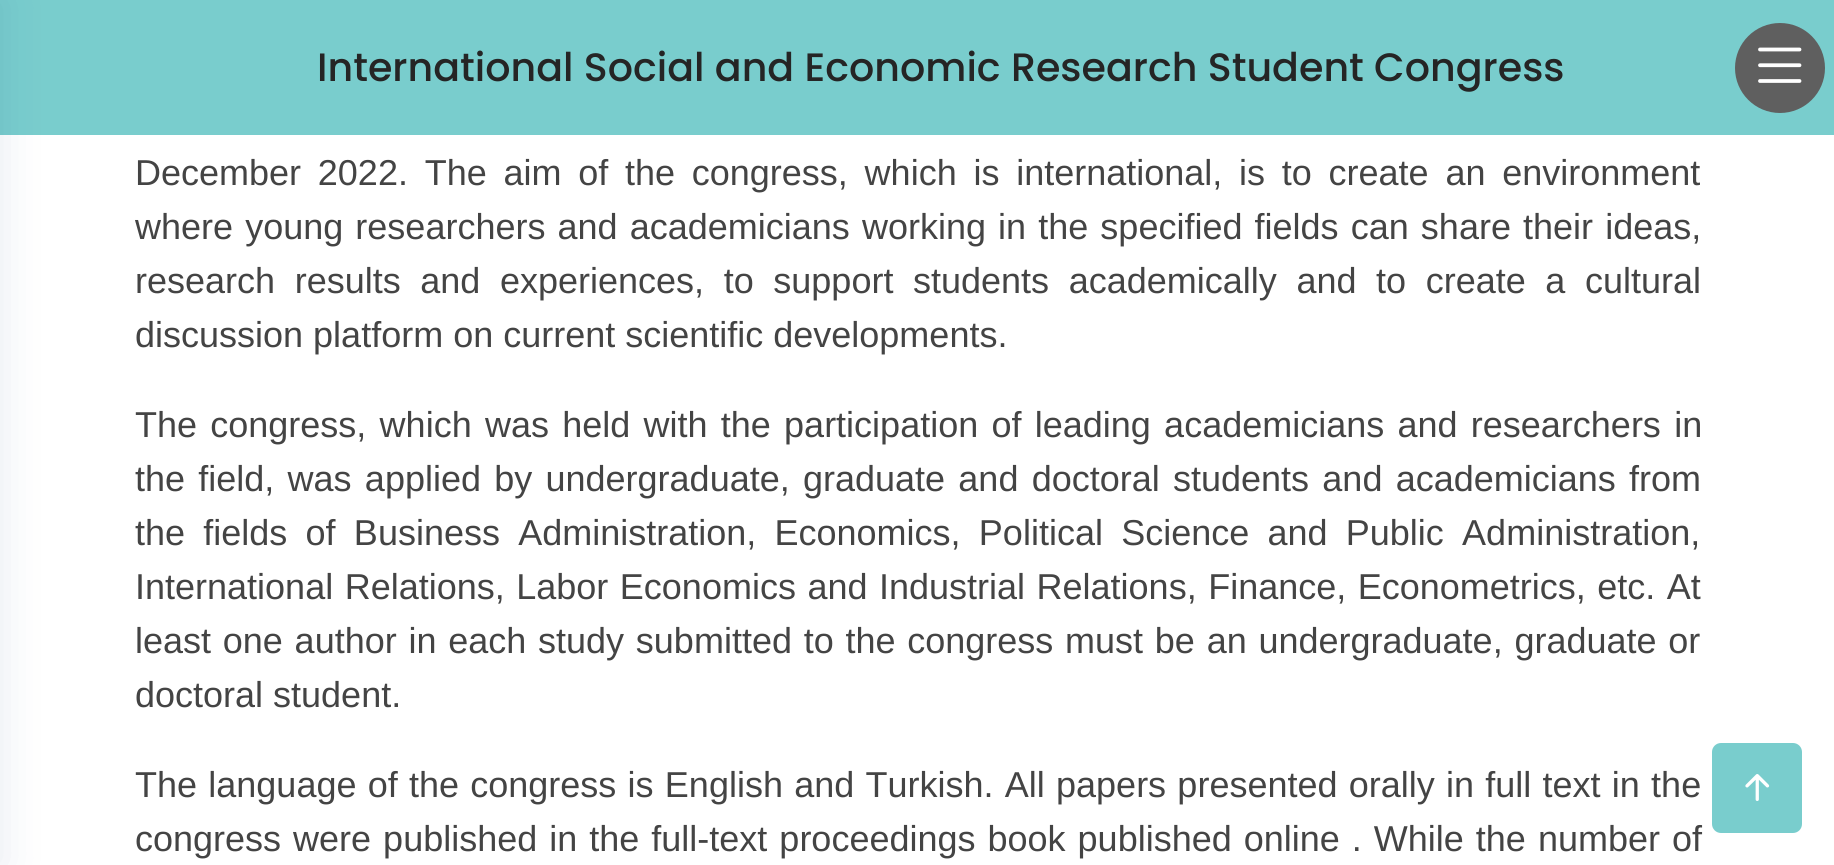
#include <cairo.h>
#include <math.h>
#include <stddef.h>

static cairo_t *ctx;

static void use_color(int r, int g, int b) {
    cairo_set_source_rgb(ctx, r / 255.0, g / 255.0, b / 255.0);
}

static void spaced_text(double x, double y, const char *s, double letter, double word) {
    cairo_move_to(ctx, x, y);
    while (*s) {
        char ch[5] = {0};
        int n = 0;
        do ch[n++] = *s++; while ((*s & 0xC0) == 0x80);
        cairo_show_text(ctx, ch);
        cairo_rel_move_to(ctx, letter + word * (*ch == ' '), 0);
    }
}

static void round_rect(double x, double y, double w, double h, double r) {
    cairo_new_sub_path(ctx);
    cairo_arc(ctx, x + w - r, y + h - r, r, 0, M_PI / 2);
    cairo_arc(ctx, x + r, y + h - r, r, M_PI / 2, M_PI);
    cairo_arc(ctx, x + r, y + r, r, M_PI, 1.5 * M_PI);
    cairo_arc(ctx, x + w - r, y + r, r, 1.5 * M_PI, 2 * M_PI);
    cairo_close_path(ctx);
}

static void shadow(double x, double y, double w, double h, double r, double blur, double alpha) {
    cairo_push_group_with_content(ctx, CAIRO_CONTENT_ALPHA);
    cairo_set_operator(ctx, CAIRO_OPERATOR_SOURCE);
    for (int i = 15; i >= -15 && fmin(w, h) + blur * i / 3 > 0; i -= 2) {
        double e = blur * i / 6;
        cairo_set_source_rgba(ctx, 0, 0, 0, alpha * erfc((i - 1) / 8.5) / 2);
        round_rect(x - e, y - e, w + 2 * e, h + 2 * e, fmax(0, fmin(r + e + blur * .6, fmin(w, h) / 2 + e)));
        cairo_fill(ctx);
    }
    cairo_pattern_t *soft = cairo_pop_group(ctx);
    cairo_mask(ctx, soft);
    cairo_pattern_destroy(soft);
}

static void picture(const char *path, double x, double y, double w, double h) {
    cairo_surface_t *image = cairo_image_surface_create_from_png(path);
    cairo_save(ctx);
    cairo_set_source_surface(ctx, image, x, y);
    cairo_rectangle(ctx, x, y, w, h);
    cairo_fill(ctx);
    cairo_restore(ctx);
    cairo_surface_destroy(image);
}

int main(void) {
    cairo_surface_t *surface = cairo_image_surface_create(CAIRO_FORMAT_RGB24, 1834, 865);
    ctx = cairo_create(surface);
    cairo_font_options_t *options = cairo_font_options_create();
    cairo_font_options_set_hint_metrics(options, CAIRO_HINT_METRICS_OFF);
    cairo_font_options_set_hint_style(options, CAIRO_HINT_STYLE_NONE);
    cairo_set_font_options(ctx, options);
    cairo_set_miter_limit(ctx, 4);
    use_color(255, 255, 255);
    cairo_paint(ctx);
    use_color(121, 205, 205);
    cairo_rectangle(ctx, 0, 0, 1834, 135);
    cairo_fill(ctx);
    use_color(1, 41, 112);
    shadow(-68, 0, 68, 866, 0, 22.5, 0.1);
    cairo_select_font_face(ctx, "Poppins Medium", CAIRO_FONT_SLANT_NORMAL, CAIRO_FONT_WEIGHT_NORMAL);
    cairo_set_font_size(ctx, 39.6);
    use_color(37, 37, 37);
    cairo_move_to(ctx, 317, 81);
    cairo_show_text(ctx, "International Social and Economic Research Student Congress");
    use_color(95, 95, 95);
    cairo_new_path(ctx);
    cairo_arc(ctx, 1780, 68, 45, 0, 2 * M_PI);
    cairo_fill(ctx);
    picture("img1.png", 1758, 47, 44, 36);
    cairo_select_font_face(ctx, "Liberation Sans", CAIRO_FONT_SLANT_NORMAL, CAIRO_FONT_WEIGHT_NORMAL);
    cairo_set_font_size(ctx, 36);
    use_color(68, 68, 68);
    spaced_text(135, 185, "December 2022. The aim of the congress, which is international, is to create an environment", 0, 6.75);
    spaced_text(135, 239, "where young researchers and academicians working in the specified fields can share their ideas,", 0, 2.1);
    spaced_text(135, 293, "research results and experiences, to support students academically and to create a cultural", 0, 9.6);
    cairo_move_to(ctx, 135, 347);
    cairo_show_text(ctx, "discussion platform on current scientific developments.");
    spaced_text(135, 437, "The congress, which was held with the participation of leading academicians and researchers in", 0, 3.25);
    spaced_text(135, 491, "the field, was applied by undergraduate, graduate and doctoral students and academicians from", 0, 3.25);
    spaced_text(135, 545, "the fields of Business Administration, Economics, Political Science and Public Administration,", 0, 8.25);
    spaced_text(135, 599, "International Relations, Labor Economics and Industrial Relations, Finance, Econometrics, etc. At", 0, 1.5);
    spaced_text(135, 653, "least one author in each study submitted to the congress must be an undergraduate, graduate or", 0, 1.75);
    cairo_move_to(ctx, 135, 707);
    cairo_show_text(ctx, "doctoral student.");
    spaced_text(135, 797, "The language of the congress is English and Turkish. All papers presented orally in full text in the", 0, 1.25);
    spaced_text(135, 851, "congress were published in the full-text proceedings book published online . While the number of", 0, 2);
    use_color(121, 205, 205);
    round_rect(1712, 743, 90, 90, 9);
    cairo_fill(ctx);
    picture("img2.png", 1745, 774, 25, 27);
    cairo_surface_write_to_png(surface, "result.png");
    cairo_font_options_destroy(options);
    cairo_destroy(ctx);
    cairo_surface_destroy(surface);
    return 0;
}
